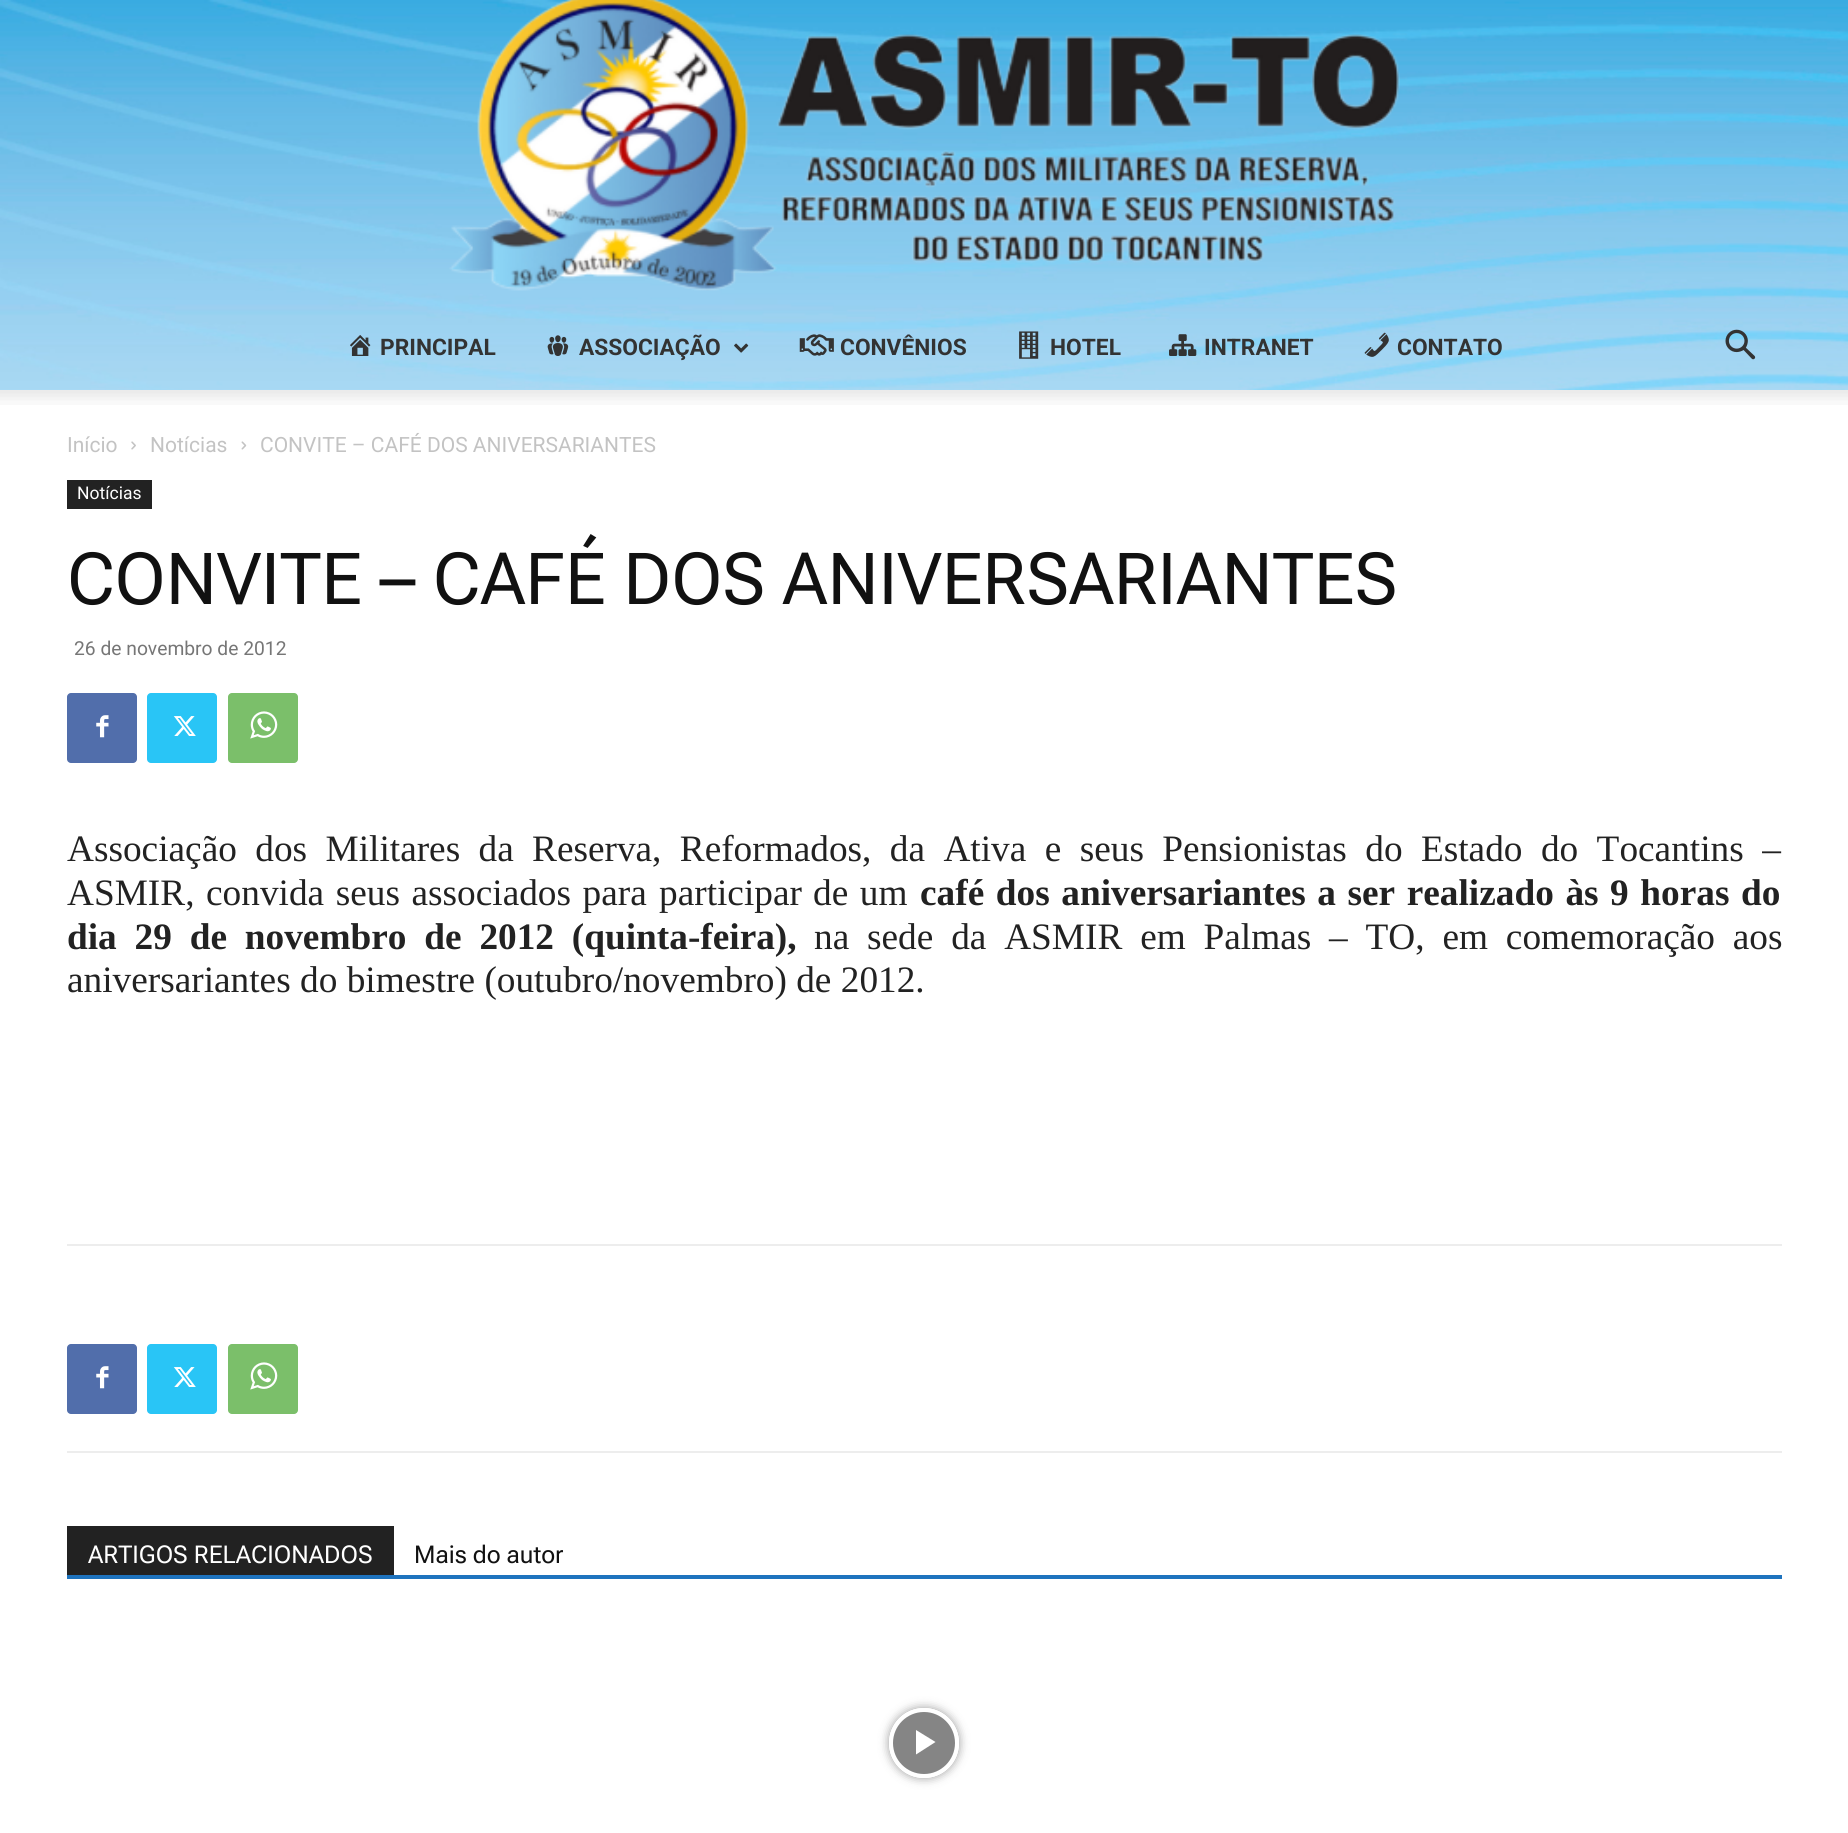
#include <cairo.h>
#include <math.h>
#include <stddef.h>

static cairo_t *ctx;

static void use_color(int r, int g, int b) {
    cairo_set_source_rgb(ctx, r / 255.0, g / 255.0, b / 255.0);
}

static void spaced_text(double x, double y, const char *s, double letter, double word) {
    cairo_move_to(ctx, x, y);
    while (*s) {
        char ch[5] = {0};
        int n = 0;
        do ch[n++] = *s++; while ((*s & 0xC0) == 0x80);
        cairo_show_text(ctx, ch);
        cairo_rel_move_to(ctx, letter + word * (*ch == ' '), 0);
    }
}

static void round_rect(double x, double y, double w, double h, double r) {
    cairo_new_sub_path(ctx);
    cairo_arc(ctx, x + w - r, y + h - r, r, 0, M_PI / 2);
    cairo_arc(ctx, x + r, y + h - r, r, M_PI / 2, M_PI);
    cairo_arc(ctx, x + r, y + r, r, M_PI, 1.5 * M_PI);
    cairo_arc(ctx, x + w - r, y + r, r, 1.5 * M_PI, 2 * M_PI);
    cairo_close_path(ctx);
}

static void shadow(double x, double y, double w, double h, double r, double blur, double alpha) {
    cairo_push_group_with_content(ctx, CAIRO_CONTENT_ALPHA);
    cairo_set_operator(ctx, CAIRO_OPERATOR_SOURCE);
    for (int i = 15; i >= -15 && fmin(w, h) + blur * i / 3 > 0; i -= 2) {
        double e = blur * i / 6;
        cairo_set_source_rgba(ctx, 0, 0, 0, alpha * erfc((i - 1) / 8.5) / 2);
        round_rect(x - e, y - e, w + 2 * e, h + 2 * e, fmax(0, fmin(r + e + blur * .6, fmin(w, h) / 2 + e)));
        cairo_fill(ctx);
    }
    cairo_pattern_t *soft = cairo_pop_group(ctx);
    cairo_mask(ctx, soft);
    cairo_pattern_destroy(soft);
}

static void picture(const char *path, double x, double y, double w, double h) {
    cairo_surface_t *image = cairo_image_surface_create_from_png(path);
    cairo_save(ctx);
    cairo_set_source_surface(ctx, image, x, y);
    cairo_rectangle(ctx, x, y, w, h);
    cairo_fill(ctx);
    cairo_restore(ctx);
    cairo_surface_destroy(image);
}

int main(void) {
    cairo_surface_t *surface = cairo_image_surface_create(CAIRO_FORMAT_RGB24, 1848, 1833);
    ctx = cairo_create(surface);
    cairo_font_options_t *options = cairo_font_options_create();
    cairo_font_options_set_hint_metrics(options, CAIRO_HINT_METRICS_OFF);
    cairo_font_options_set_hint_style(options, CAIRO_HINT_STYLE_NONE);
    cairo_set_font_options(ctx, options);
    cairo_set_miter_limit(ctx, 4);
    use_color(255, 255, 255);
    cairo_paint(ctx);
    picture("img1.png", 0, 0, 1848, 390);
    picture("img2.png", 449, 0, 951, 291);
    picture("img3.png", 350, 335, 21, 21);
    cairo_select_font_face(ctx, "Roboto", CAIRO_FONT_SLANT_NORMAL, CAIRO_FONT_WEIGHT_BOLD);
    cairo_set_font_size(ctx, 22.75);
    use_color(51, 51, 51);
    cairo_move_to(ctx, 380, 355);
    cairo_show_text(ctx, "PRINCIPAL");
    picture("img4.png", 547, 335, 22, 21);
    cairo_move_to(ctx, 579, 355);
    cairo_show_text(ctx, "ASSOCIAÇÃO");
    picture("img5.png", 734, 343, 15, 10);
    picture("img6.png", 799, 334, 35, 22);
    cairo_move_to(ctx, 840, 355);
    cairo_show_text(ctx, "CONVÊNIOS");
    picture("img7.png", 1019, 331, 20, 28);
    cairo_move_to(ctx, 1050, 355);
    cairo_show_text(ctx, "HOTEL");
    picture("img8.png", 1169, 334, 28, 22);
    cairo_move_to(ctx, 1204, 355);
    cairo_show_text(ctx, "INTRANET");
    picture("img9.png", 1364, 332, 25, 25);
    cairo_move_to(ctx, 1397, 355);
    cairo_show_text(ctx, "CONTATO");
    picture("img10.png", 1725, 329, 31, 31);
    picture("img11.png", 0, 390, 1848, 15);
    cairo_select_font_face(ctx, "Roboto", CAIRO_FONT_SLANT_NORMAL, CAIRO_FONT_WEIGHT_NORMAL);
    cairo_set_font_size(ctx, 21);
    use_color(195, 195, 195);
    cairo_move_to(ctx, 67, 452);
    cairo_show_text(ctx, "Início");
    picture("img12.png", 131, 441, 5, 9);
    cairo_move_to(ctx, 150, 452);
    cairo_show_text(ctx, "Notícias");
    picture("img13.png", 241, 441, 6, 9);
    cairo_move_to(ctx, 260, 452);
    cairo_show_text(ctx, "CONVITE – CAFÉ DOS ANIVERSARIANTES");
    use_color(34, 34, 34);
    cairo_rectangle(ctx, 67, 480, 85, 29);
    cairo_fill(ctx);
    cairo_set_font_size(ctx, 17.5);
    use_color(255, 255, 255);
    cairo_move_to(ctx, 77, 499);
    cairo_show_text(ctx, "Notícias");
    cairo_select_font_face(ctx, "Roboto Flex", CAIRO_FONT_SLANT_NORMAL, CAIRO_FONT_WEIGHT_NORMAL);
    cairo_set_font_size(ctx, 71.75);
    use_color(17, 17, 17);
    cairo_move_to(ctx, 67, 604);
    cairo_show_text(ctx, "CONVITE – CAFÉ DOS ANIVERSARIANTES");
    cairo_select_font_face(ctx, "Roboto", CAIRO_FONT_SLANT_NORMAL, CAIRO_FONT_WEIGHT_NORMAL);
    cairo_set_font_size(ctx, 19.25);
    use_color(118, 118, 118);
    cairo_move_to(ctx, 74, 655);
    cairo_show_text(ctx, "26 de novembro de 2012");
    use_color(81, 110, 171);
    round_rect(67, 693, 70, 70, 4);
    cairo_fill(ctx);
    picture("img14.png", 96, 715, 13, 23);
    use_color(41, 197, 246);
    round_rect(147, 693, 70, 70, 4);
    cairo_fill(ctx);
    picture("img15.png", 173, 716, 23, 20);
    use_color(123, 191, 106);
    round_rect(228, 693, 70, 70, 4);
    cairo_fill(ctx);
    picture("img16.png", 250, 711, 28, 28);
    cairo_select_font_face(ctx, "Liberation Serif", CAIRO_FONT_SLANT_NORMAL, CAIRO_FONT_WEIGHT_NORMAL);
    cairo_set_font_size(ctx, 37.3);
    use_color(34, 34, 34);
    spaced_text(67, 861, "Associação dos Militares da", 0, 9.1);
    cairo_move_to(ctx, 532, 861);
    cairo_show_text(ctx, "Reserva");
    spaced_text(652, 861, ", Reformados, da Ativa e seus Pensionistas do Estado do Tocantins –", 0, 9.1);
    spaced_text(67, 905, "ASMIR, convida seus associados para", 0, 2.25);
    cairo_move_to(ctx, 659, 905);
    cairo_show_text(ctx, "participar");
    spaced_text(813, 905, "de um", 0, 2.25);
    cairo_select_font_face(ctx, "Liberation Serif", CAIRO_FONT_SLANT_NORMAL, CAIRO_FONT_WEIGHT_BOLD);
    spaced_text(920, 905, "café dos aniversariantes a ser realizado às 9 horas do", 0, 2.25);
    spaced_text(67, 949, "dia 29 de novembro de 2012 (quinta-feira),", 0, 8.5);
    cairo_select_font_face(ctx, "Liberation Serif", CAIRO_FONT_SLANT_NORMAL, CAIRO_FONT_WEIGHT_NORMAL);
    spaced_text(814, 949, "na sede da ASMIR em Palmas – TO, em comemoração aos", 0, 8.5);
    cairo_move_to(ctx, 67, 992);
    cairo_show_text(ctx, "aniversariantes do bimestre (outubro/novembro) de 2012.");
    use_color(237, 237, 237);
    cairo_rectangle(ctx, 67, 1244, 1715, 2);
    cairo_fill(ctx);
    cairo_rectangle(ctx, 67, 1451, 1715, 2);
    cairo_fill(ctx);
    use_color(81, 110, 171);
    round_rect(67, 1344, 70, 70, 4);
    cairo_fill(ctx);
    picture("img14.png", 96, 1366, 13, 23);
    use_color(41, 197, 246);
    round_rect(147, 1344, 70, 70, 4);
    cairo_fill(ctx);
    picture("img15.png", 173, 1367, 23, 20);
    use_color(123, 191, 106);
    round_rect(228, 1344, 70, 70, 4);
    cairo_fill(ctx);
    picture("img16.png", 250, 1362, 28, 28);
    use_color(30, 115, 190);
    cairo_rectangle(ctx, 67, 1575, 1715, 4);
    cairo_fill(ctx);
    use_color(34, 34, 34);
    cairo_rectangle(ctx, 67, 1526, 327, 49);
    cairo_fill(ctx);
    cairo_select_font_face(ctx, "Roboto Flex", CAIRO_FONT_SLANT_NORMAL, CAIRO_FONT_WEIGHT_NORMAL);
    cairo_set_font_size(ctx, 24.5);
    use_color(255, 255, 255);
    cairo_move_to(ctx, 88, 1563);
    cairo_show_text(ctx, "ARTIGOS RELACIONADOS");
    use_color(17, 17, 17);
    cairo_move_to(ctx, 414, 1563);
    cairo_show_text(ctx, "Mais do autor");
    cairo_save(ctx);
    cairo_set_fill_rule(ctx, CAIRO_FILL_RULE_EVEN_ODD);
    cairo_new_path(ctx);
    cairo_move_to(ctx, 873, 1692);
    cairo_line_to(ctx, 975, 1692);
    cairo_line_to(ctx, 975, 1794);
    cairo_line_to(ctx, 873, 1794);
    cairo_close_path(ctx);
    cairo_move_to(ctx, 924, 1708);
    cairo_curve_to(ctx, 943.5, 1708, 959, 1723.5, 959, 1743);
    cairo_curve_to(ctx, 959, 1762.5, 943.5, 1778, 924, 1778);
    cairo_curve_to(ctx, 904.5, 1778, 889, 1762.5, 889, 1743);
    cairo_curve_to(ctx, 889, 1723.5, 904.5, 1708, 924, 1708);
    cairo_close_path(ctx);
    cairo_clip(ctx);
    use_color(0, 0, 0);
    shadow(889, 1708, 70, 70, 35, 5, 0.4);
    cairo_restore(ctx);
    cairo_set_source_rgba(ctx, 0, 0, 0, 0.48);
    cairo_arc(ctx, 924, 1743, 33, 0, 2 * M_PI);
    cairo_fill_preserve(ctx);
    use_color(255, 255, 255);
    cairo_set_line_width(ctx, 4);
    cairo_stroke(ctx);
    cairo_new_path(ctx);
    cairo_move_to(ctx, 916, 1730);
    cairo_line_to(ctx, 916, 1754.5);
    cairo_line_to(ctx, 935.5, 1742);
    cairo_close_path(ctx);
    cairo_fill(ctx);
    cairo_surface_write_to_png(surface, "result.png");
    cairo_font_options_destroy(options);
    cairo_destroy(ctx);
    cairo_surface_destroy(surface);
    return 0;
}
